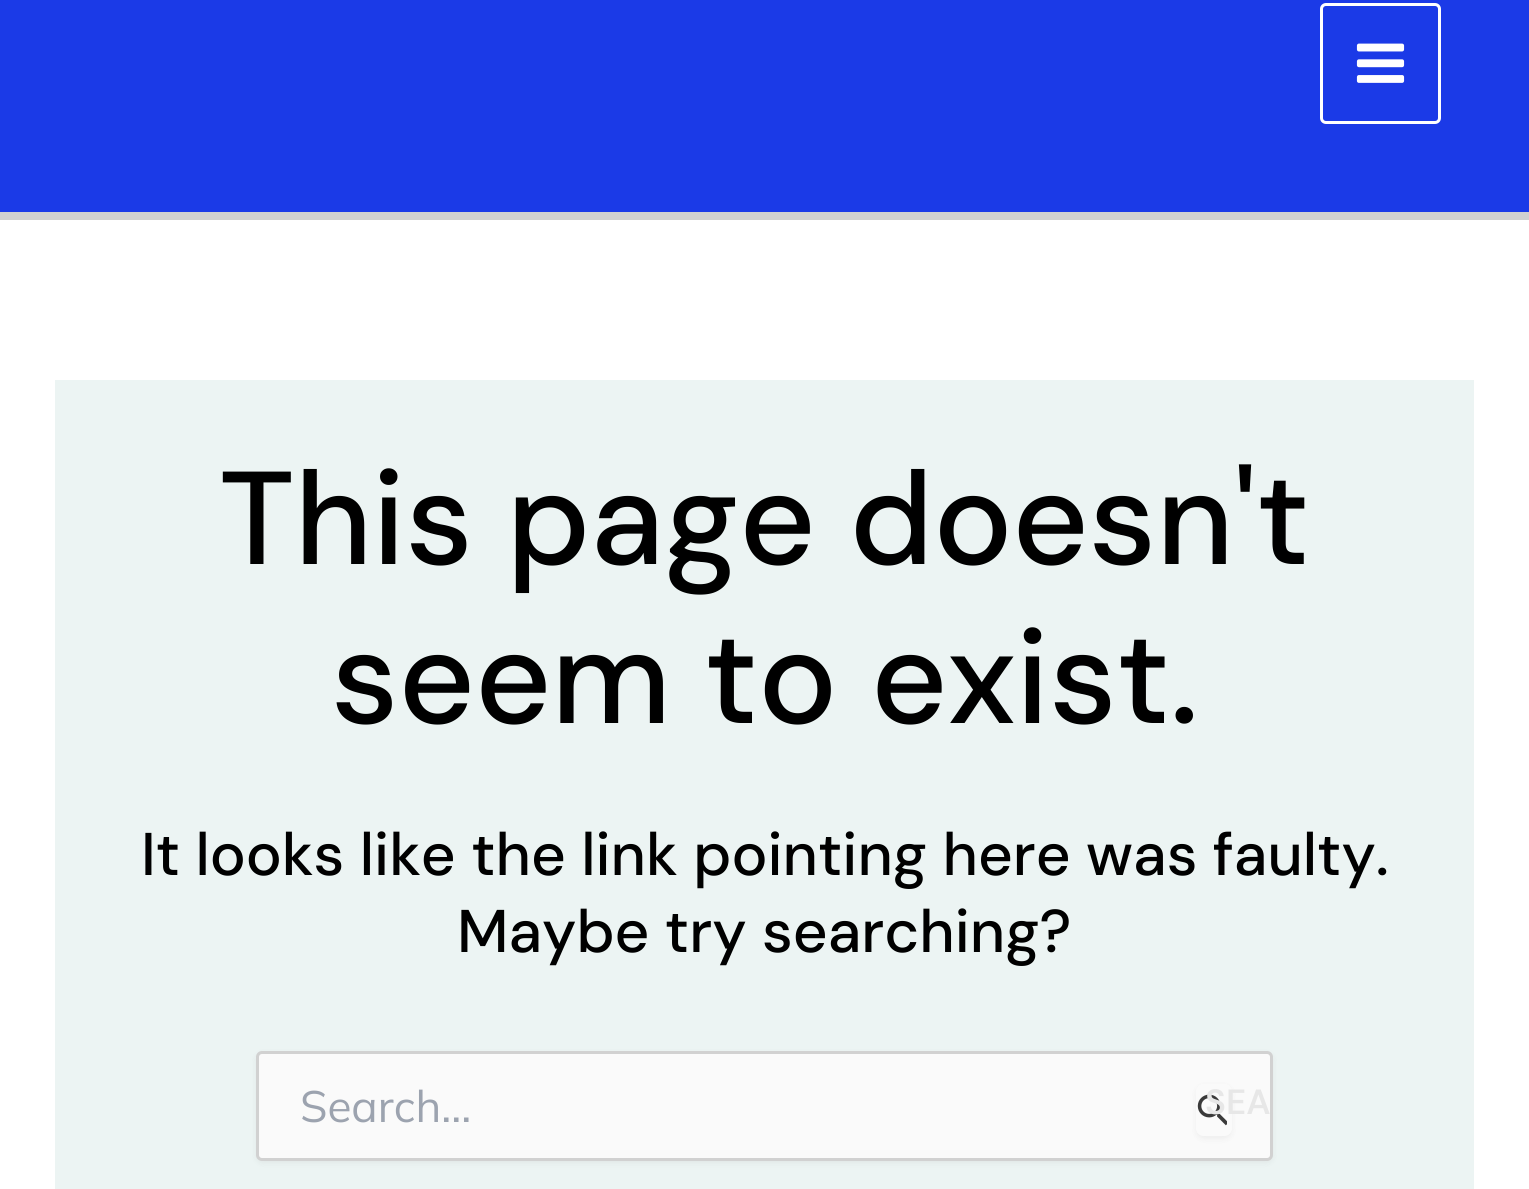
#include <cairo.h>
#include <math.h>
#include <stddef.h>

static cairo_t *ctx;

static void use_color(int r, int g, int b) {
    cairo_set_source_rgb(ctx, r / 255.0, g / 255.0, b / 255.0);
}

static void round_rect(double x, double y, double w, double h, double r) {
    cairo_new_sub_path(ctx);
    cairo_arc(ctx, x + w - r, y + h - r, r, 0, M_PI / 2);
    cairo_arc(ctx, x + r, y + h - r, r, M_PI / 2, M_PI);
    cairo_arc(ctx, x + r, y + r, r, M_PI, 1.5 * M_PI);
    cairo_arc(ctx, x + w - r, y + r, r, 1.5 * M_PI, 2 * M_PI);
    cairo_close_path(ctx);
}

static void shadow(double x, double y, double w, double h, double r, double blur, double alpha) {
    cairo_push_group_with_content(ctx, CAIRO_CONTENT_ALPHA);
    cairo_set_operator(ctx, CAIRO_OPERATOR_SOURCE);
    for (int i = 15; i >= -15 && fmin(w, h) + blur * i / 3 > 0; i -= 2) {
        double e = blur * i / 6;
        cairo_set_source_rgba(ctx, 0, 0, 0, alpha * erfc((i - 1) / 8.5) / 2);
        round_rect(x - e, y - e, w + 2 * e, h + 2 * e, fmax(0, fmin(r + e + blur * .6, fmin(w, h) / 2 + e)));
        cairo_fill(ctx);
    }
    cairo_pattern_t *soft = cairo_pop_group(ctx);
    cairo_mask(ctx, soft);
    cairo_pattern_destroy(soft);
}

static void picture(const char *path, double x, double y, double w, double h) {
    cairo_surface_t *image = cairo_image_surface_create_from_png(path);
    cairo_save(ctx);
    cairo_set_source_surface(ctx, image, x, y);
    cairo_rectangle(ctx, x, y, w, h);
    cairo_fill(ctx);
    cairo_restore(ctx);
    cairo_surface_destroy(image);
}

int main(void) {
    cairo_surface_t *surface = cairo_image_surface_create(CAIRO_FORMAT_RGB24, 1529, 1189);
    ctx = cairo_create(surface);
    cairo_font_options_t *options = cairo_font_options_create();
    cairo_font_options_set_hint_metrics(options, CAIRO_HINT_METRICS_OFF);
    cairo_font_options_set_hint_style(options, CAIRO_HINT_STYLE_NONE);
    cairo_set_font_options(ctx, options);
    cairo_set_miter_limit(ctx, 4);
    use_color(255, 255, 255);
    cairo_paint(ctx);
    use_color(27, 58, 231);
    cairo_rectangle(ctx, 0, 0, 1529, 212);
    cairo_fill(ctx);
    use_color(209, 209, 209);
    cairo_rectangle(ctx, 0, 212, 1529, 8);
    cairo_fill(ctx);
    round_rect(1321.5, 4.5, 118, 118, 4.5);
    use_color(255, 255, 255);
    cairo_set_line_width(ctx, 3);
    cairo_stroke(ctx);
    picture("img1.png", 1356, 43, 49, 40);
    use_color(236, 244, 243);
    cairo_rectangle(ctx, 55, 380, 1419, 809);
    cairo_fill(ctx);
    cairo_select_font_face(ctx, "DM Sans Medium", CAIRO_FONT_SLANT_NORMAL, CAIRO_FONT_WEIGHT_NORMAL);
    cairo_set_font_size(ctx, 132);
    use_color(0, 0, 0);
    cairo_move_to(ctx, 219, 564);
    cairo_show_text(ctx, "This page doesn't");
    cairo_move_to(ctx, 331, 723);
    cairo_show_text(ctx, "seem to exist.");
    cairo_set_font_size(ctx, 60.2);
    cairo_move_to(ctx, 141, 875);
    cairo_show_text(ctx, "It looks like the link pointing here was faulty.");
    cairo_move_to(ctx, 457, 952);
    cairo_show_text(ctx, "Maybe try searching?");
    use_color(0, 0, 0);
    shadow(256, 1053, 1017, 110, 6, 3, 0.05);
    use_color(250, 250, 250);
    round_rect(257.5, 1052.5, 1014, 107, 4.5);
    cairo_fill_preserve(ctx);
    use_color(209, 209, 209);
    cairo_stroke(ctx);
    cairo_select_font_face(ctx, "Mulish", CAIRO_FONT_SLANT_NORMAL, CAIRO_FONT_WEIGHT_NORMAL);
    cairo_set_font_size(ctx, 44);
    use_color(156, 163, 175);
    cairo_move_to(ctx, 300, 1122);
    cairo_show_text(ctx, "Search...");
    cairo_save(ctx);
    cairo_set_fill_rule(ctx, CAIRO_FILL_RULE_EVEN_ODD);
    cairo_new_path(ctx);
    cairo_move_to(ctx, 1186, 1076);
    cairo_line_to(ctx, 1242, 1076);
    cairo_line_to(ctx, 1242, 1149);
    cairo_line_to(ctx, 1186, 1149);
    cairo_close_path(ctx);
    cairo_move_to(ctx, 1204, 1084);
    cairo_line_to(ctx, 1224, 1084);
    cairo_curve_to(ctx, 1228.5, 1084, 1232, 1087.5, 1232, 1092);
    cairo_line_to(ctx, 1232, 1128);
    cairo_curve_to(ctx, 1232, 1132.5, 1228.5, 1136, 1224, 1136);
    cairo_line_to(ctx, 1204, 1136);
    cairo_curve_to(ctx, 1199.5, 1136, 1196, 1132.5, 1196, 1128);
    cairo_line_to(ctx, 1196, 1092);
    cairo_curve_to(ctx, 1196, 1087.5, 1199.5, 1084, 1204, 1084);
    cairo_close_path(ctx);
    cairo_clip(ctx);
    use_color(0, 0, 0);
    shadow(1196, 1086, 36, 53, 8, 3, 0.05);
    cairo_restore(ctx);
    picture("img2.png", 1197, 1094, 30, 32);
    cairo_select_font_face(ctx, "DM Sans SemiBold", CAIRO_FONT_SLANT_NORMAL, CAIRO_FONT_WEIGHT_NORMAL);
    cairo_set_font_size(ctx, 35);
    use_color(231, 231, 231);
    cairo_move_to(ctx, 1205, 1114);
    cairo_show_text(ctx, "SEA");
    cairo_surface_write_to_png(surface, "result.png");
    cairo_font_options_destroy(options);
    cairo_destroy(ctx);
    cairo_surface_destroy(surface);
    return 0;
}
